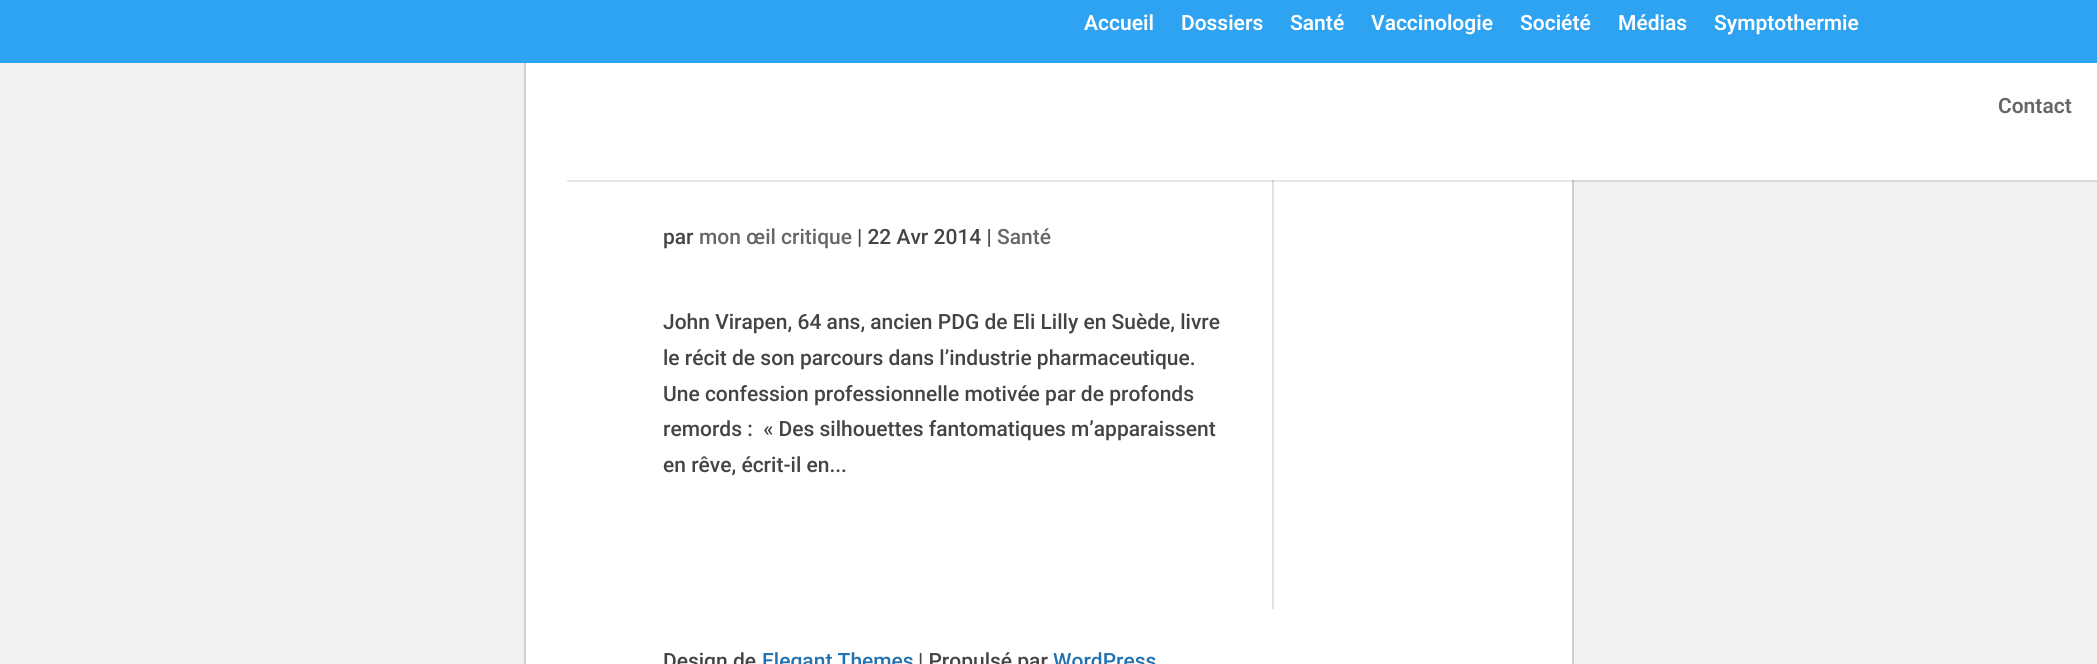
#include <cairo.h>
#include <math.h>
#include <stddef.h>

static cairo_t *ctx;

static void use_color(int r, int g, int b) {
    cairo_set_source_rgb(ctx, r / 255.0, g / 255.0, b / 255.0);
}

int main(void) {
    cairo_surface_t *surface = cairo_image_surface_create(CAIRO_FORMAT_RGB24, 2097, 664);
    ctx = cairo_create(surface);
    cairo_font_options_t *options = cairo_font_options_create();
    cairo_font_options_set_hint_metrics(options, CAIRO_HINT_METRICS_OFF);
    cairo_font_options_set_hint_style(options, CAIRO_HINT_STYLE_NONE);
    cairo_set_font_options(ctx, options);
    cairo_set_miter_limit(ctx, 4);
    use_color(241, 241, 241);
    cairo_paint(ctx);
    use_color(255, 255, 255);
    cairo_rectangle(ctx, 526, 63, 1046, 601);
    cairo_fill(ctx);
    cairo_rectangle(ctx, 525, -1, 1048, 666);
    use_color(204, 208, 212);
    cairo_stroke(ctx);
    use_color(46, 163, 242);
    cairo_rectangle(ctx, 0, 0, 2097, 63);
    cairo_fill(ctx);
    cairo_select_font_face(ctx, "Roboto SemiBold", CAIRO_FONT_SLANT_NORMAL, CAIRO_FONT_WEIGHT_NORMAL);
    cairo_set_font_size(ctx, 21);
    use_color(255, 255, 255);
    cairo_move_to(ctx, 1084, 30);
    cairo_show_text(ctx, "Accueil");
    cairo_move_to(ctx, 1181, 30);
    cairo_show_text(ctx, "Dossiers");
    cairo_move_to(ctx, 1290, 30);
    cairo_show_text(ctx, "Santé");
    cairo_move_to(ctx, 1371, 30);
    cairo_show_text(ctx, "Vaccinologie");
    cairo_move_to(ctx, 1520, 30);
    cairo_show_text(ctx, "Société");
    cairo_move_to(ctx, 1618, 30);
    cairo_show_text(ctx, "Médias");
    cairo_move_to(ctx, 1714, 30);
    cairo_show_text(ctx, "Symptothermie");
    use_color(226, 226, 226);
    cairo_rectangle(ctx, 1272, 180, 2, 429);
    cairo_fill(ctx);
    cairo_set_source_rgba(ctx, 0, 0, 0, 0.1);
    cairo_rectangle(ctx, 567, 180, 1530, 2);
    cairo_fill(ctx);
    use_color(255, 255, 255);
    cairo_rectangle(ctx, 1572, 63, 525, 117);
    cairo_fill(ctx);
    use_color(102, 102, 102);
    cairo_move_to(ctx, 1998, 113);
    cairo_show_text(ctx, "Contact");
    cairo_select_font_face(ctx, "Roboto Medium", CAIRO_FONT_SLANT_NORMAL, CAIRO_FONT_WEIGHT_NORMAL);
    use_color(68, 68, 68);
    cairo_move_to(ctx, 663, 244);
    cairo_show_text(ctx, "par");
    use_color(102, 102, 102);
    cairo_move_to(ctx, 699, 244);
    cairo_show_text(ctx, "mon œil critique");
    use_color(68, 68, 68);
    cairo_move_to(ctx, 857, 244);
    cairo_show_text(ctx, "| 22 Avr 2014 |");
    use_color(102, 102, 102);
    cairo_move_to(ctx, 997, 244);
    cairo_show_text(ctx, "Santé");
    use_color(68, 68, 68);
    cairo_move_to(ctx, 663, 329);
    cairo_show_text(ctx, "John Virapen, 64 ans, ancien PDG de Eli Lilly en Suède, livre");
    cairo_move_to(ctx, 663, 365);
    cairo_show_text(ctx, "le récit de son parcours dans l’industrie pharmaceutique.");
    cairo_move_to(ctx, 663, 401);
    cairo_show_text(ctx, "Une confession professionnelle motivée par de profonds");
    cairo_move_to(ctx, 663, 436);
    cairo_show_text(ctx, "remords :  « Des silhouettes fantomatiques m’apparaissent");
    cairo_move_to(ctx, 663, 472);
    cairo_show_text(ctx, "en rêve, écrit-il en...");
    cairo_move_to(ctx, 663, 668);
    cairo_show_text(ctx, "Design de");
    use_color(34, 113, 177);
    cairo_move_to(ctx, 762, 668);
    cairo_show_text(ctx, "Elegant Themes");
    use_color(68, 68, 68);
    cairo_move_to(ctx, 918, 668);
    cairo_show_text(ctx, "| Propulsé par");
    use_color(34, 113, 177);
    cairo_move_to(ctx, 1053, 668);
    cairo_show_text(ctx, "WordPress");
    cairo_surface_write_to_png(surface, "result.png");
    cairo_font_options_destroy(options);
    cairo_destroy(ctx);
    cairo_surface_destroy(surface);
    return 0;
}
